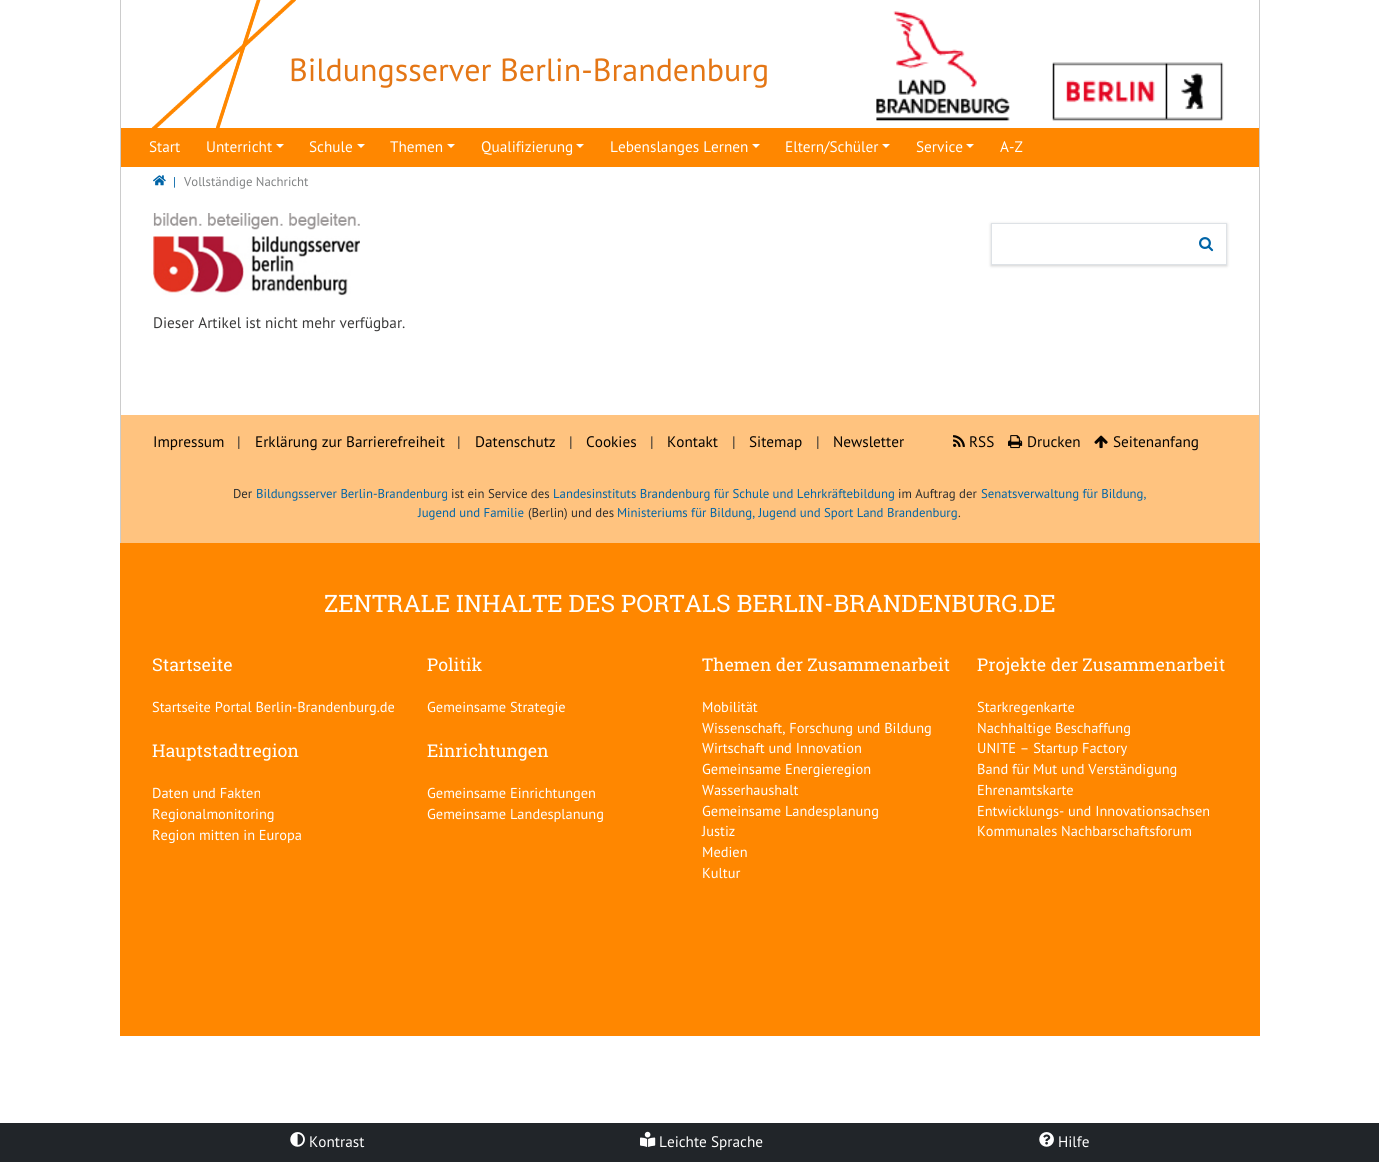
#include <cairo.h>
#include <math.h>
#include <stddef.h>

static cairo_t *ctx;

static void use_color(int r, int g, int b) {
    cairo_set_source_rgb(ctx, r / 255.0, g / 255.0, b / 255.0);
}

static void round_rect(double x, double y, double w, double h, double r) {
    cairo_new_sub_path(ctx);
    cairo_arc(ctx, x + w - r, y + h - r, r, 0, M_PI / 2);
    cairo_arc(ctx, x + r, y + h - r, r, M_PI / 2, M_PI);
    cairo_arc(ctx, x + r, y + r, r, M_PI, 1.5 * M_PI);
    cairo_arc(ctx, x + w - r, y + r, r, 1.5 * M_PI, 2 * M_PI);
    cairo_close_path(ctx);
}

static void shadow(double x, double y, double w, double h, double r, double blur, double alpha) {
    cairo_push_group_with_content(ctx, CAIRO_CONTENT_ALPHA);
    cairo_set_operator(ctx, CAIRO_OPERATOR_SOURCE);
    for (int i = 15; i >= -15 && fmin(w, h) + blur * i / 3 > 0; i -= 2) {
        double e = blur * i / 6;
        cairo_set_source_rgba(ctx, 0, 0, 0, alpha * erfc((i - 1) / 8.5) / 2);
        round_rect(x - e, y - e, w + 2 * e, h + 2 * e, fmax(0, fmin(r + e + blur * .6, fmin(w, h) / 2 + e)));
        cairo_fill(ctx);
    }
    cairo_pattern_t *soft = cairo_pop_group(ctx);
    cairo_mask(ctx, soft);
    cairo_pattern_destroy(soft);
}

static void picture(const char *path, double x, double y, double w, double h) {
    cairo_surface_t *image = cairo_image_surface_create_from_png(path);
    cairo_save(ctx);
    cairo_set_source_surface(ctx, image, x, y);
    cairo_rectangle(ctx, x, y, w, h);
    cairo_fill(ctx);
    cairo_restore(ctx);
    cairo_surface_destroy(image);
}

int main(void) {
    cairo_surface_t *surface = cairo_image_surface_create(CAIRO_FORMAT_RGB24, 1379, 1162);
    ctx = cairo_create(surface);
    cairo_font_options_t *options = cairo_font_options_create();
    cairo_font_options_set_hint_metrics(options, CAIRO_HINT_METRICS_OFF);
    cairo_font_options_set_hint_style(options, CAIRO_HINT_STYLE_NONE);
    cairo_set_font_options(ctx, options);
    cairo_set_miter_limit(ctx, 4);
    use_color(255, 255, 255);
    cairo_paint(ctx);
    picture("img1.png", 151, 0, 145, 128);
    use_color(204, 204, 204);
    cairo_rectangle(ctx, 1259, 0, 1, 167);
    cairo_fill(ctx);
    cairo_rectangle(ctx, 120, 0, 1, 167);
    cairo_fill(ctx);
    cairo_select_font_face(ctx, "PT Sans", CAIRO_FONT_SLANT_NORMAL, CAIRO_FONT_WEIGHT_NORMAL);
    cairo_set_font_size(ctx, 32);
    use_color(228, 118, 21);
    cairo_move_to(ctx, 289, 81);
    cairo_show_text(ctx, "Bildungsserver Berlin-Brandenburg");
    picture("img2.png", 876, 11, 348, 110);
    use_color(255, 135, 0);
    cairo_rectangle(ctx, 121, 128, 1138, 39);
    cairo_fill(ctx);
    cairo_set_font_size(ctx, 15.25);
    use_color(255, 255, 255);
    cairo_move_to(ctx, 149, 152);
    cairo_show_text(ctx, "Start");
    cairo_move_to(ctx, 206, 152);
    cairo_show_text(ctx, "Unterricht");
    cairo_new_path(ctx);
    cairo_move_to(ctx, 276, 144);
    cairo_line_to(ctx, 284, 144);
    cairo_line_to(ctx, 280, 148);
    cairo_close_path(ctx);
    cairo_fill(ctx);
    cairo_move_to(ctx, 309, 152);
    cairo_show_text(ctx, "Schule");
    cairo_new_path(ctx);
    cairo_move_to(ctx, 357, 144);
    cairo_line_to(ctx, 365, 144);
    cairo_line_to(ctx, 361, 148);
    cairo_close_path(ctx);
    cairo_fill(ctx);
    cairo_move_to(ctx, 390, 152);
    cairo_show_text(ctx, "Themen");
    cairo_new_path(ctx);
    cairo_move_to(ctx, 447, 144);
    cairo_line_to(ctx, 455, 144);
    cairo_line_to(ctx, 451, 148);
    cairo_close_path(ctx);
    cairo_fill(ctx);
    cairo_move_to(ctx, 481, 152);
    cairo_show_text(ctx, "Qualifizierung");
    cairo_new_path(ctx);
    cairo_move_to(ctx, 576, 144);
    cairo_line_to(ctx, 584, 144);
    cairo_line_to(ctx, 580, 148);
    cairo_close_path(ctx);
    cairo_fill(ctx);
    cairo_move_to(ctx, 610, 152);
    cairo_show_text(ctx, "Lebenslanges Lernen");
    cairo_new_path(ctx);
    cairo_move_to(ctx, 752, 144);
    cairo_line_to(ctx, 760, 144);
    cairo_line_to(ctx, 756, 148);
    cairo_close_path(ctx);
    cairo_fill(ctx);
    cairo_move_to(ctx, 785, 152);
    cairo_show_text(ctx, "Eltern/Schüler");
    cairo_new_path(ctx);
    cairo_move_to(ctx, 882, 144);
    cairo_line_to(ctx, 890, 144);
    cairo_line_to(ctx, 886, 148);
    cairo_close_path(ctx);
    cairo_fill(ctx);
    cairo_move_to(ctx, 916, 152);
    cairo_show_text(ctx, "Service");
    cairo_new_path(ctx);
    cairo_move_to(ctx, 966, 144);
    cairo_line_to(ctx, 974, 144);
    cairo_line_to(ctx, 970, 148);
    cairo_close_path(ctx);
    cairo_fill(ctx);
    cairo_move_to(ctx, 1000, 152);
    cairo_show_text(ctx, "A-Z");
    use_color(204, 204, 204);
    cairo_rectangle(ctx, 1259, 167, 1, 376);
    cairo_fill(ctx);
    cairo_rectangle(ctx, 120, 167, 1, 376);
    cairo_fill(ctx);
    picture("img3.png", 153, 175, 13, 11);
    cairo_set_font_size(ctx, 12.8);
    use_color(0, 100, 167);
    cairo_move_to(ctx, 173, 186);
    cairo_show_text(ctx, "|");
    use_color(128, 130, 131);
    cairo_move_to(ctx, 184, 186);
    cairo_show_text(ctx, "Vollständige Nachricht");
    picture("img4.png", 153, 213, 207, 83);
    cairo_save(ctx);
    cairo_set_fill_rule(ctx, CAIRO_FILL_RULE_EVEN_ODD);
    cairo_new_path(ctx);
    cairo_move_to(ctx, 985, 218);
    cairo_line_to(ctx, 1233, 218);
    cairo_line_to(ctx, 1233, 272);
    cairo_line_to(ctx, 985, 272);
    cairo_close_path(ctx);
    cairo_move_to(ctx, 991, 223);
    cairo_line_to(ctx, 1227, 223);
    cairo_line_to(ctx, 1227, 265);
    cairo_line_to(ctx, 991, 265);
    cairo_close_path(ctx);
    cairo_clip(ctx);
    use_color(12, 12, 13);
    shadow(991, 224, 236, 42, 0, 1.5, 0.2);
    cairo_restore(ctx);
    cairo_rectangle(ctx, 991.5, 223.5, 235, 41);
    use_color(222, 226, 230);
    cairo_set_line_width(ctx, 1);
    cairo_stroke(ctx);
    picture("img5.png", 1199, 237, 15, 15);
    cairo_set_font_size(ctx, 15.25);
    use_color(59, 58, 58);
    cairo_move_to(ctx, 153, 328);
    cairo_show_text(ctx, "Dieser Artikel ist nicht mehr verfügbar.");
    use_color(255, 195, 127);
    cairo_rectangle(ctx, 121, 415, 1138, 128);
    cairo_fill(ctx);
    use_color(6, 3, 0);
    cairo_move_to(ctx, 153, 447);
    cairo_show_text(ctx, "Impressum");
    use_color(47, 47, 47);
    cairo_move_to(ctx, 237, 447);
    cairo_show_text(ctx, "|");
    use_color(6, 3, 0);
    cairo_move_to(ctx, 255, 447);
    cairo_show_text(ctx, "Erklärung zur Barrierefreiheit");
    use_color(47, 47, 47);
    cairo_move_to(ctx, 457, 447);
    cairo_show_text(ctx, "|");
    use_color(6, 3, 0);
    cairo_move_to(ctx, 475, 447);
    cairo_show_text(ctx, "Datenschutz");
    use_color(47, 47, 47);
    cairo_move_to(ctx, 569, 447);
    cairo_show_text(ctx, "|");
    use_color(6, 3, 0);
    cairo_move_to(ctx, 586, 447);
    cairo_show_text(ctx, "Cookies");
    use_color(47, 47, 47);
    cairo_move_to(ctx, 650, 447);
    cairo_show_text(ctx, "|");
    use_color(6, 3, 0);
    cairo_move_to(ctx, 667, 447);
    cairo_show_text(ctx, "Kontakt");
    use_color(47, 47, 47);
    cairo_move_to(ctx, 732, 447);
    cairo_show_text(ctx, "|");
    use_color(6, 3, 0);
    cairo_move_to(ctx, 749, 447);
    cairo_show_text(ctx, "Sitemap");
    use_color(47, 47, 47);
    cairo_move_to(ctx, 816, 447);
    cairo_show_text(ctx, "|");
    use_color(6, 3, 0);
    cairo_move_to(ctx, 833, 447);
    cairo_show_text(ctx, "Newsletter");
    picture("img6.png", 953, 435, 12, 12);
    cairo_move_to(ctx, 969, 447);
    cairo_show_text(ctx, "RSS");
    picture("img7.png", 1008, 435, 15, 14);
    cairo_move_to(ctx, 1027, 447);
    cairo_show_text(ctx, "Drucken");
    picture("img8.png", 1094, 435, 14, 14);
    cairo_move_to(ctx, 1113, 447);
    cairo_show_text(ctx, "Seitenanfang");
    cairo_set_font_size(ctx, 12.8);
    use_color(47, 47, 47);
    cairo_move_to(ctx, 233, 498);
    cairo_show_text(ctx, "Der");
    use_color(0, 100, 167);
    cairo_move_to(ctx, 256, 498);
    cairo_show_text(ctx, "Bildungsserver Berlin-Brandenburg");
    use_color(47, 47, 47);
    cairo_move_to(ctx, 451, 498);
    cairo_show_text(ctx, "ist ein Service des");
    use_color(0, 100, 167);
    cairo_move_to(ctx, 553, 498);
    cairo_show_text(ctx, "Landesinstituts Brandenburg für Schule und Lehrkräftebildung");
    use_color(47, 47, 47);
    cairo_move_to(ctx, 898, 498);
    cairo_show_text(ctx, "im Auftrag der");
    use_color(0, 100, 167);
    cairo_move_to(ctx, 981, 498);
    cairo_show_text(ctx, "Senatsverwaltung für Bildung,");
    cairo_move_to(ctx, 418, 517);
    cairo_show_text(ctx, "Jugend und Familie");
    use_color(47, 47, 47);
    cairo_move_to(ctx, 528, 517);
    cairo_show_text(ctx, "(Berlin) und des");
    use_color(0, 100, 167);
    cairo_move_to(ctx, 617, 517);
    cairo_show_text(ctx, "Ministeriums für Bildung, Jugend und Sport Land Brandenburg");
    use_color(47, 47, 47);
    cairo_move_to(ctx, 958, 517);
    cairo_show_text(ctx, ".");
    use_color(255, 135, 0);
    cairo_rectangle(ctx, 120, 543, 1140, 493);
    cairo_fill(ctx);
    cairo_select_font_face(ctx, "Roboto Slab", CAIRO_FONT_SLANT_NORMAL, CAIRO_FONT_WEIGHT_NORMAL);
    cairo_set_font_size(ctx, 24);
    use_color(255, 255, 255);
    cairo_move_to(ctx, 324, 612);
    cairo_show_text(ctx, "ZENTRALE INHALTE DES PORTALS BERLIN-BRANDENBURG.DE");
    cairo_set_font_size(ctx, 17.6);
    cairo_move_to(ctx, 152, 671);
    cairo_show_text(ctx, "Startseite");
    cairo_select_font_face(ctx, "PT Sans", CAIRO_FONT_SLANT_NORMAL, CAIRO_FONT_WEIGHT_NORMAL);
    cairo_set_font_size(ctx, 14.4);
    cairo_move_to(ctx, 152, 712);
    cairo_show_text(ctx, "Startseite Portal Berlin-Brandenburg.de");
    cairo_select_font_face(ctx, "Roboto Slab", CAIRO_FONT_SLANT_NORMAL, CAIRO_FONT_WEIGHT_NORMAL);
    cairo_set_font_size(ctx, 17.6);
    cairo_move_to(ctx, 152, 757);
    cairo_show_text(ctx, "Hauptstadtregion");
    cairo_select_font_face(ctx, "PT Sans", CAIRO_FONT_SLANT_NORMAL, CAIRO_FONT_WEIGHT_NORMAL);
    cairo_set_font_size(ctx, 14.4);
    cairo_move_to(ctx, 152, 798);
    cairo_show_text(ctx, "Daten und Fakten");
    cairo_move_to(ctx, 152, 819);
    cairo_show_text(ctx, "Regionalmonitoring");
    cairo_move_to(ctx, 152, 840);
    cairo_show_text(ctx, "Region mitten in Europa");
    cairo_select_font_face(ctx, "Roboto Slab", CAIRO_FONT_SLANT_NORMAL, CAIRO_FONT_WEIGHT_NORMAL);
    cairo_set_font_size(ctx, 17.6);
    cairo_move_to(ctx, 427, 671);
    cairo_show_text(ctx, "Politik");
    cairo_select_font_face(ctx, "PT Sans", CAIRO_FONT_SLANT_NORMAL, CAIRO_FONT_WEIGHT_NORMAL);
    cairo_set_font_size(ctx, 14.4);
    cairo_move_to(ctx, 427, 712);
    cairo_show_text(ctx, "Gemeinsame Strategie");
    cairo_select_font_face(ctx, "Roboto Slab", CAIRO_FONT_SLANT_NORMAL, CAIRO_FONT_WEIGHT_NORMAL);
    cairo_set_font_size(ctx, 17.6);
    cairo_move_to(ctx, 427, 757);
    cairo_show_text(ctx, "Einrichtungen");
    cairo_select_font_face(ctx, "PT Sans", CAIRO_FONT_SLANT_NORMAL, CAIRO_FONT_WEIGHT_NORMAL);
    cairo_set_font_size(ctx, 14.4);
    cairo_move_to(ctx, 427, 798);
    cairo_show_text(ctx, "Gemeinsame Einrichtungen");
    cairo_move_to(ctx, 427, 819);
    cairo_show_text(ctx, "Gemeinsame Landesplanung");
    cairo_select_font_face(ctx, "Roboto Slab", CAIRO_FONT_SLANT_NORMAL, CAIRO_FONT_WEIGHT_NORMAL);
    cairo_set_font_size(ctx, 17.6);
    cairo_move_to(ctx, 702, 671);
    cairo_show_text(ctx, "Themen der Zusammenarbeit");
    cairo_select_font_face(ctx, "PT Sans", CAIRO_FONT_SLANT_NORMAL, CAIRO_FONT_WEIGHT_NORMAL);
    cairo_set_font_size(ctx, 14.4);
    cairo_move_to(ctx, 702, 712);
    cairo_show_text(ctx, "Mobilität");
    cairo_move_to(ctx, 702, 733);
    cairo_show_text(ctx, "Wissenschaft, Forschung und Bildung");
    cairo_move_to(ctx, 702, 753);
    cairo_show_text(ctx, "Wirtschaft und Innovation");
    cairo_move_to(ctx, 702, 774);
    cairo_show_text(ctx, "Gemeinsame Energieregion");
    cairo_move_to(ctx, 702, 795);
    cairo_show_text(ctx, "Wasserhaushalt");
    cairo_move_to(ctx, 702, 816);
    cairo_show_text(ctx, "Gemeinsame Landesplanung");
    cairo_move_to(ctx, 702, 836);
    cairo_show_text(ctx, "Justiz");
    cairo_move_to(ctx, 702, 857);
    cairo_show_text(ctx, "Medien");
    cairo_move_to(ctx, 702, 878);
    cairo_show_text(ctx, "Kultur");
    cairo_select_font_face(ctx, "Roboto Slab", CAIRO_FONT_SLANT_NORMAL, CAIRO_FONT_WEIGHT_NORMAL);
    cairo_set_font_size(ctx, 17.6);
    cairo_move_to(ctx, 977, 671);
    cairo_show_text(ctx, "Projekte der Zusammenarbeit");
    cairo_select_font_face(ctx, "PT Sans", CAIRO_FONT_SLANT_NORMAL, CAIRO_FONT_WEIGHT_NORMAL);
    cairo_set_font_size(ctx, 14.4);
    cairo_move_to(ctx, 977, 712);
    cairo_show_text(ctx, "Starkregenkarte");
    cairo_move_to(ctx, 977, 733);
    cairo_show_text(ctx, "Nachhaltige Beschaffung");
    cairo_move_to(ctx, 977, 753);
    cairo_show_text(ctx, "UNITE – Startup Factory");
    cairo_move_to(ctx, 977, 774);
    cairo_show_text(ctx, "Band für Mut und Verständigung");
    cairo_move_to(ctx, 977, 795);
    cairo_show_text(ctx, "Ehrenamtskarte");
    cairo_move_to(ctx, 977, 816);
    cairo_show_text(ctx, "Entwicklungs- und Innovationsachsen");
    cairo_move_to(ctx, 977, 836);
    cairo_show_text(ctx, "Kommunales Nachbarschaftsforum");
    use_color(33, 37, 41);
    cairo_rectangle(ctx, 0, 1123, 1379, 39);
    cairo_fill(ctx);
    picture("img9.png", 290, 1132, 15, 15);
    cairo_set_font_size(ctx, 15.25);
    use_color(255, 255, 255);
    cairo_move_to(ctx, 309, 1147);
    cairo_show_text(ctx, "Kontrast");
    picture("img10.png", 640, 1131, 16, 16);
    cairo_move_to(ctx, 659, 1147);
    cairo_show_text(ctx, "Leichte Sprache");
    picture("img11.png", 1039, 1132, 15, 15);
    cairo_move_to(ctx, 1058, 1147);
    cairo_show_text(ctx, "Hilfe");
    cairo_surface_write_to_png(surface, "result.png");
    cairo_font_options_destroy(options);
    cairo_destroy(ctx);
    cairo_surface_destroy(surface);
    return 0;
}
